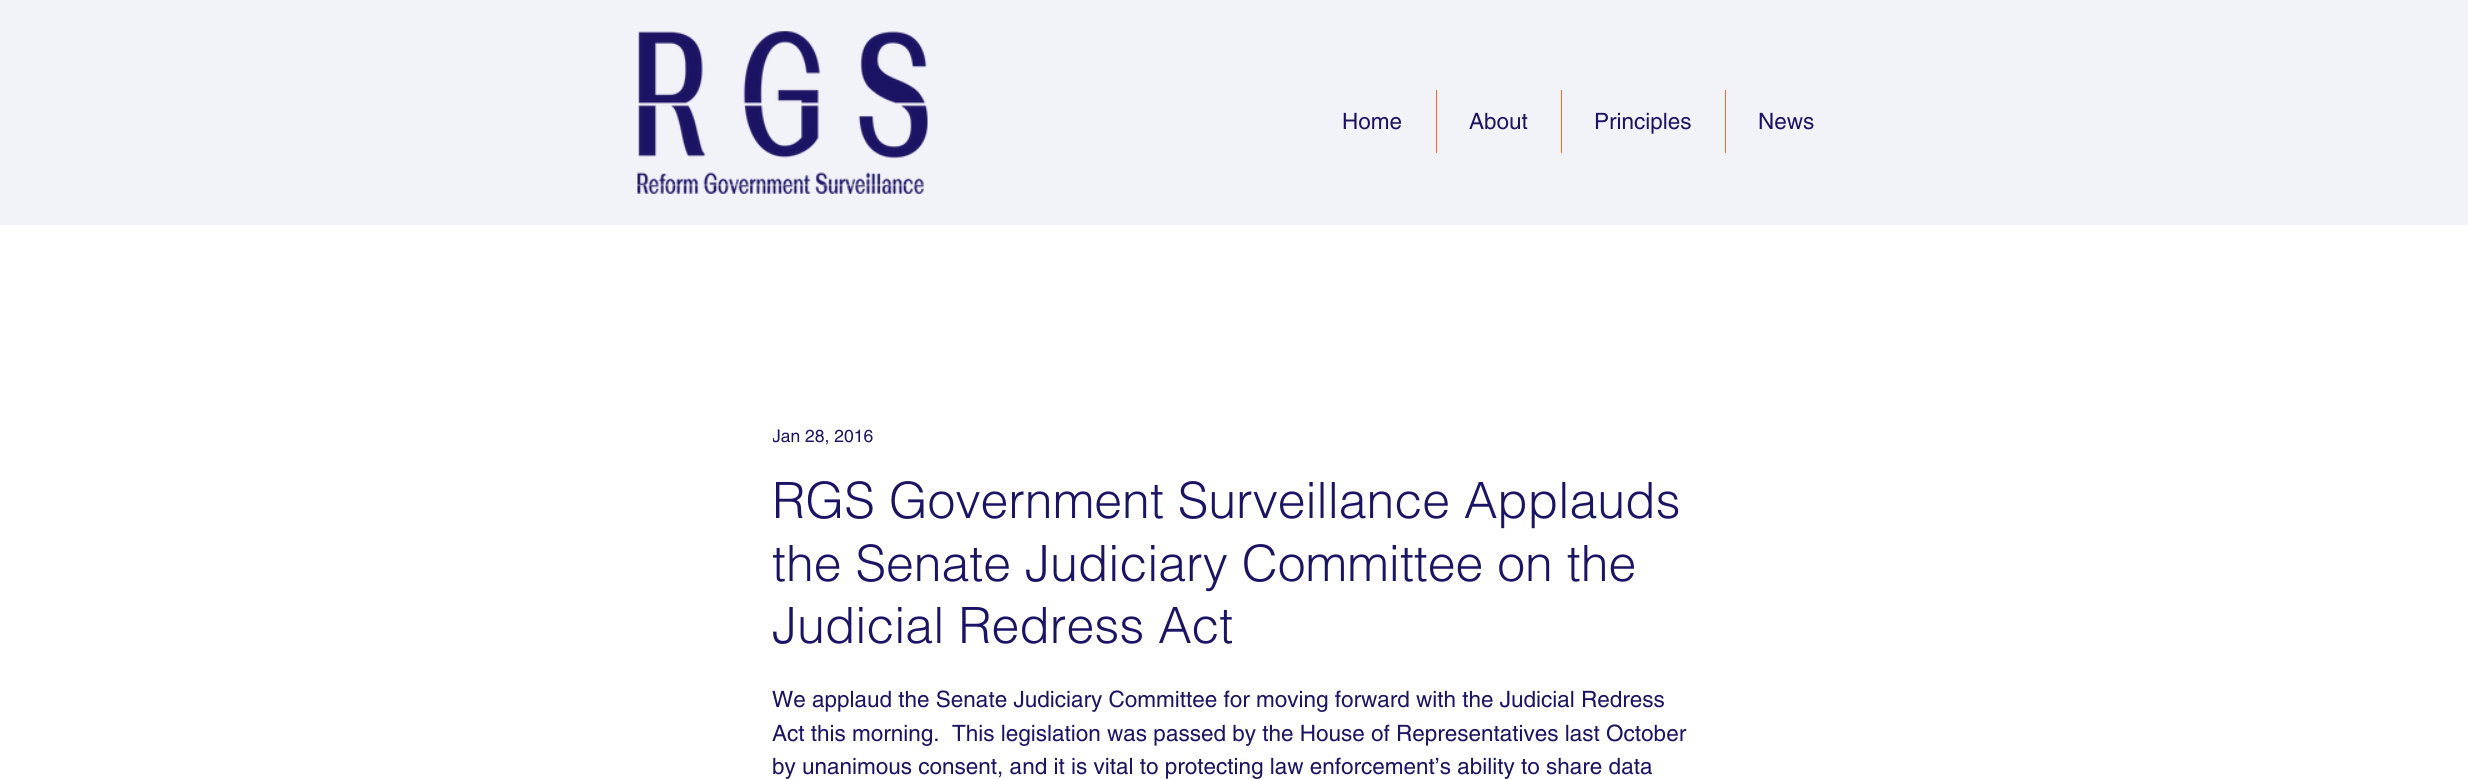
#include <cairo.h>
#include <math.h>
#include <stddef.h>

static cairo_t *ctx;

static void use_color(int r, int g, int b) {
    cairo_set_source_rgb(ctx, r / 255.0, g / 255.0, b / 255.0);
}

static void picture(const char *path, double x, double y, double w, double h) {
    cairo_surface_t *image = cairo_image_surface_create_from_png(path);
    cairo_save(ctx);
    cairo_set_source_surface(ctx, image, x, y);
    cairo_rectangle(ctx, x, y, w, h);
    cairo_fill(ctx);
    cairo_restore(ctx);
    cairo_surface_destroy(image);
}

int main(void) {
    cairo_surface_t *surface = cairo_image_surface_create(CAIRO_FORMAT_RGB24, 2468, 779);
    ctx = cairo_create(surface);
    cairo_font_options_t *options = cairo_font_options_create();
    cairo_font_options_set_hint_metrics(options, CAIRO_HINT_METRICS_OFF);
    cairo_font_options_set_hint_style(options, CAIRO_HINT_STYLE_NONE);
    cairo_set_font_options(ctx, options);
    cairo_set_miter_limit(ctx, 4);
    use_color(255, 255, 255);
    cairo_paint(ctx);
    use_color(242, 243, 249);
    cairo_rectangle(ctx, 0, 0, 2468, 225);
    cairo_fill(ctx);
    picture("img1.png", 637, 31, 291, 163);
    cairo_select_font_face(ctx, "helvetica", CAIRO_FONT_SLANT_NORMAL, CAIRO_FONT_WEIGHT_NORMAL);
    cairo_set_font_size(ctx, 22.5);
    use_color(27, 20, 100);
    cairo_move_to(ctx, 1342, 129);
    cairo_show_text(ctx, "Home");
    use_color(249, 102, 37);
    cairo_rectangle(ctx, 1436, 90, 1, 63);
    cairo_fill(ctx);
    use_color(27, 20, 100);
    cairo_move_to(ctx, 1469, 129);
    cairo_show_text(ctx, "About");
    use_color(249, 102, 37);
    cairo_rectangle(ctx, 1561, 90, 1, 63);
    cairo_fill(ctx);
    use_color(27, 20, 100);
    cairo_move_to(ctx, 1594, 129);
    cairo_show_text(ctx, "Principles");
    use_color(249, 102, 37);
    cairo_rectangle(ctx, 1725, 90, 1, 63);
    cairo_fill(ctx);
    use_color(27, 20, 100);
    cairo_move_to(ctx, 1758, 129);
    cairo_show_text(ctx, "News");
    cairo_save(ctx);
    cairo_rectangle(ctx, 773, 424, 100, 26);
    cairo_clip(ctx);
    cairo_set_font_size(ctx, 17.5);
    cairo_move_to(ctx, 772, 442);
    cairo_show_text(ctx, "Jan 28, 2016");
    cairo_restore(ctx);
    cairo_select_font_face(ctx, "helvetica Light", CAIRO_FONT_SLANT_NORMAL, CAIRO_FONT_WEIGHT_NORMAL);
    cairo_set_font_size(ctx, 50);
    cairo_move_to(ctx, 772, 518);
    cairo_show_text(ctx, "RGS Government Surveillance Applauds");
    cairo_move_to(ctx, 772, 581);
    cairo_show_text(ctx, "the Senate Judiciary Committee on the");
    cairo_move_to(ctx, 772, 643);
    cairo_show_text(ctx, "Judicial Redress Act");
    cairo_select_font_face(ctx, "helvetica", CAIRO_FONT_SLANT_NORMAL, CAIRO_FONT_WEIGHT_NORMAL);
    cairo_set_font_size(ctx, 22.5);
    cairo_move_to(ctx, 772, 707);
    cairo_show_text(ctx, "We applaud the Senate Judiciary Committee for moving forward with the Judicial Redress");
    cairo_move_to(ctx, 772, 741);
    cairo_show_text(ctx, "Act this morning.  This legislation was passed by the House of Representatives last October");
    cairo_move_to(ctx, 772, 774);
    cairo_show_text(ctx, "by unanimous consent, and it is vital to protecting law enforcement’s ability to share data");
    cairo_surface_write_to_png(surface, "result.png");
    cairo_font_options_destroy(options);
    cairo_destroy(ctx);
    cairo_surface_destroy(surface);
    return 0;
}
